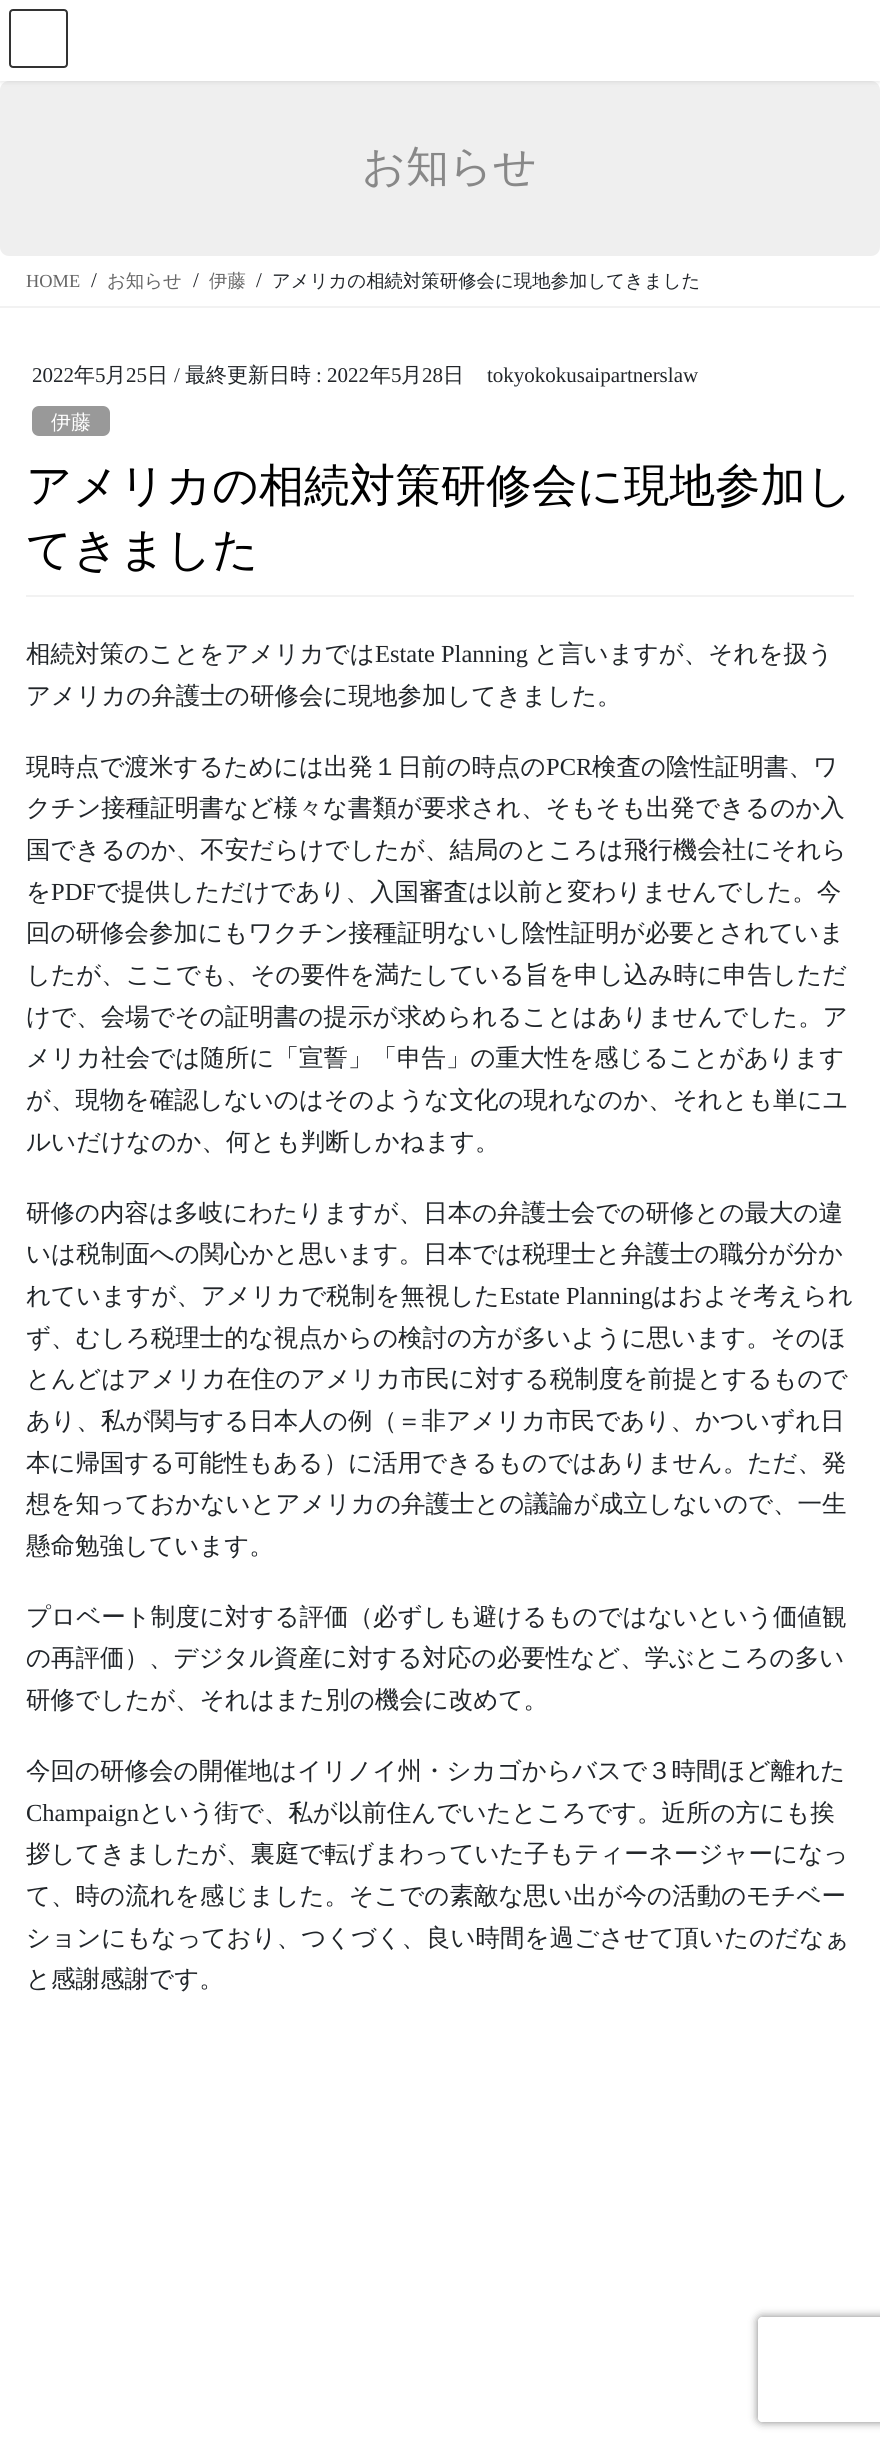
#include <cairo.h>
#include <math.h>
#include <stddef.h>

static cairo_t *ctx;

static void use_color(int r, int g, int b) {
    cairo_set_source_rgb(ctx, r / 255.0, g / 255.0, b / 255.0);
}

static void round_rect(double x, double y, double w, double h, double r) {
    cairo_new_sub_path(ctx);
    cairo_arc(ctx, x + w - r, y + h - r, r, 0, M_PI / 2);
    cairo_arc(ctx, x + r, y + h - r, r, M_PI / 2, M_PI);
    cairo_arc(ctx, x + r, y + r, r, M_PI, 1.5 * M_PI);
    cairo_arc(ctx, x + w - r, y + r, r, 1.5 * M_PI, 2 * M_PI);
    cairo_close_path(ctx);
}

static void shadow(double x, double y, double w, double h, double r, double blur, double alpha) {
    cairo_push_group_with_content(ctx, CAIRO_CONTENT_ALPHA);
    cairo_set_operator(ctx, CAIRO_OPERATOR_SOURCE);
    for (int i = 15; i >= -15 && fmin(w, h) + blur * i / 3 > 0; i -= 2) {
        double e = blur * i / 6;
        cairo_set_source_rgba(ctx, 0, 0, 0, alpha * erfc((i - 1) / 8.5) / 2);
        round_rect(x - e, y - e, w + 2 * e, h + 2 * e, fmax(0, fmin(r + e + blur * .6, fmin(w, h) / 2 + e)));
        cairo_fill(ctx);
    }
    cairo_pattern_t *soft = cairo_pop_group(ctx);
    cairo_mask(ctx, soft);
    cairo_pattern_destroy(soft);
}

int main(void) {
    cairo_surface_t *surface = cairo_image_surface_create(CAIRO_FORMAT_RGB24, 880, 2445);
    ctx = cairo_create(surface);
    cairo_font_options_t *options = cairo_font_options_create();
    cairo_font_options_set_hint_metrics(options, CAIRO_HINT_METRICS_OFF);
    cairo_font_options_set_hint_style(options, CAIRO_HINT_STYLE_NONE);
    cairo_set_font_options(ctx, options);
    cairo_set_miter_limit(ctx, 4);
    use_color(255, 255, 255);
    cairo_paint(ctx);
    use_color(239, 239, 239);
    round_rect(0, 81, 880, 175, 9);
    cairo_fill(ctx);
    use_color(0, 0, 0);
    shadow(0, 2, 880, 80, 0, 2.5, 0.1);
    use_color(255, 255, 255);
    cairo_rectangle(ctx, 0, 0, 880, 81);
    cairo_fill(ctx);
    round_rect(10, 10, 57, 57, 3);
    use_color(51, 51, 51);
    cairo_stroke(ctx);
    cairo_select_font_face(ctx, "WenQuanYi Zen Hei Medium", CAIRO_FONT_SLANT_NORMAL, CAIRO_FONT_WEIGHT_NORMAL);
    cairo_set_font_size(ctx, 43);
    use_color(136, 136, 136);
    cairo_move_to(ctx, 362, 181);
    cairo_show_text(ctx, "お知らせ");
    use_color(242, 242, 242);
    cairo_rectangle(ctx, 0, 306, 880, 2);
    cairo_fill(ctx);
    cairo_select_font_face(ctx, "Liberation Serif", CAIRO_FONT_SLANT_NORMAL, CAIRO_FONT_WEIGHT_NORMAL);
    cairo_set_font_size(ctx, 18.4);
    use_color(102, 102, 102);
    cairo_move_to(ctx, 26, 287);
    cairo_show_text(ctx, "HOME");
    cairo_set_font_size(ctx, 21);
    use_color(33, 37, 41);
    cairo_move_to(ctx, 91, 287);
    cairo_show_text(ctx, "/");
    cairo_select_font_face(ctx, "WenQuanYi Zen Hei Medium", CAIRO_FONT_SLANT_NORMAL, CAIRO_FONT_WEIGHT_NORMAL);
    cairo_set_font_size(ctx, 18.4);
    use_color(102, 102, 102);
    cairo_move_to(ctx, 107, 287);
    cairo_show_text(ctx, "お知らせ");
    cairo_select_font_face(ctx, "Liberation Serif", CAIRO_FONT_SLANT_NORMAL, CAIRO_FONT_WEIGHT_NORMAL);
    cairo_set_font_size(ctx, 21);
    use_color(33, 37, 41);
    cairo_move_to(ctx, 193, 287);
    cairo_show_text(ctx, "/");
    cairo_select_font_face(ctx, "WenQuanYi Zen Hei Medium", CAIRO_FONT_SLANT_NORMAL, CAIRO_FONT_WEIGHT_NORMAL);
    cairo_set_font_size(ctx, 18.4);
    use_color(102, 102, 102);
    cairo_move_to(ctx, 209, 287);
    cairo_show_text(ctx, "伊藤");
    cairo_select_font_face(ctx, "Liberation Serif", CAIRO_FONT_SLANT_NORMAL, CAIRO_FONT_WEIGHT_NORMAL);
    cairo_set_font_size(ctx, 21);
    use_color(33, 37, 41);
    cairo_move_to(ctx, 256, 287);
    cairo_show_text(ctx, "/");
    cairo_select_font_face(ctx, "WenQuanYi Zen Hei Medium", CAIRO_FONT_SLANT_NORMAL, CAIRO_FONT_WEIGHT_NORMAL);
    cairo_set_font_size(ctx, 18.4);
    cairo_move_to(ctx, 272, 287);
    cairo_show_text(ctx, "アメリカの相続対策研修会に現地参加してきました");
    use_color(242, 242, 242);
    cairo_rectangle(ctx, 26, 595, 828, 2);
    cairo_fill(ctx);
    cairo_select_font_face(ctx, "Liberation Serif", CAIRO_FONT_SLANT_NORMAL, CAIRO_FONT_WEIGHT_NORMAL);
    cairo_set_font_size(ctx, 21);
    use_color(33, 37, 41);
    cairo_move_to(ctx, 32, 382);
    cairo_show_text(ctx, "2022");
    cairo_select_font_face(ctx, "WenQuanYi Zen Hei Medium", CAIRO_FONT_SLANT_NORMAL, CAIRO_FONT_WEIGHT_NORMAL);
    cairo_move_to(ctx, 74, 382);
    cairo_show_text(ctx, "年");
    cairo_select_font_face(ctx, "Liberation Serif", CAIRO_FONT_SLANT_NORMAL, CAIRO_FONT_WEIGHT_NORMAL);
    cairo_move_to(ctx, 95, 382);
    cairo_show_text(ctx, "5");
    cairo_select_font_face(ctx, "WenQuanYi Zen Hei Medium", CAIRO_FONT_SLANT_NORMAL, CAIRO_FONT_WEIGHT_NORMAL);
    cairo_move_to(ctx, 105, 382);
    cairo_show_text(ctx, "月");
    cairo_select_font_face(ctx, "Liberation Serif", CAIRO_FONT_SLANT_NORMAL, CAIRO_FONT_WEIGHT_NORMAL);
    cairo_move_to(ctx, 126, 382);
    cairo_show_text(ctx, "25");
    cairo_select_font_face(ctx, "WenQuanYi Zen Hei Medium", CAIRO_FONT_SLANT_NORMAL, CAIRO_FONT_WEIGHT_NORMAL);
    cairo_move_to(ctx, 147, 382);
    cairo_show_text(ctx, "日");
    cairo_select_font_face(ctx, "Liberation Serif", CAIRO_FONT_SLANT_NORMAL, CAIRO_FONT_WEIGHT_NORMAL);
    cairo_move_to(ctx, 174, 382);
    cairo_show_text(ctx, "/");
    cairo_select_font_face(ctx, "WenQuanYi Zen Hei Medium", CAIRO_FONT_SLANT_NORMAL, CAIRO_FONT_WEIGHT_NORMAL);
    cairo_move_to(ctx, 185, 382);
    cairo_show_text(ctx, "最終更新日時");
    cairo_select_font_face(ctx, "Liberation Serif", CAIRO_FONT_SLANT_NORMAL, CAIRO_FONT_WEIGHT_NORMAL);
    cairo_move_to(ctx, 316, 382);
    cairo_show_text(ctx, ": 2022");
    cairo_select_font_face(ctx, "WenQuanYi Zen Hei Medium", CAIRO_FONT_SLANT_NORMAL, CAIRO_FONT_WEIGHT_NORMAL);
    cairo_move_to(ctx, 370, 382);
    cairo_show_text(ctx, "年");
    cairo_select_font_face(ctx, "Liberation Serif", CAIRO_FONT_SLANT_NORMAL, CAIRO_FONT_WEIGHT_NORMAL);
    cairo_move_to(ctx, 391, 382);
    cairo_show_text(ctx, "5");
    cairo_select_font_face(ctx, "WenQuanYi Zen Hei Medium", CAIRO_FONT_SLANT_NORMAL, CAIRO_FONT_WEIGHT_NORMAL);
    cairo_move_to(ctx, 401, 382);
    cairo_show_text(ctx, "月");
    cairo_select_font_face(ctx, "Liberation Serif", CAIRO_FONT_SLANT_NORMAL, CAIRO_FONT_WEIGHT_NORMAL);
    cairo_move_to(ctx, 422, 382);
    cairo_show_text(ctx, "28");
    cairo_select_font_face(ctx, "WenQuanYi Zen Hei Medium", CAIRO_FONT_SLANT_NORMAL, CAIRO_FONT_WEIGHT_NORMAL);
    cairo_move_to(ctx, 443, 382);
    cairo_show_text(ctx, "日");
    cairo_select_font_face(ctx, "Liberation Serif", CAIRO_FONT_SLANT_NORMAL, CAIRO_FONT_WEIGHT_NORMAL);
    cairo_move_to(ctx, 487, 382);
    cairo_show_text(ctx, "tokyokokusaipartnerslaw");
    use_color(153, 153, 153);
    round_rect(32, 406, 78, 30, 7);
    cairo_fill(ctx);
    cairo_select_font_face(ctx, "WenQuanYi Zen Hei Medium", CAIRO_FONT_SLANT_NORMAL, CAIRO_FONT_WEIGHT_NORMAL);
    cairo_set_font_size(ctx, 20);
    use_color(255, 255, 255);
    cairo_move_to(ctx, 51, 429);
    cairo_show_text(ctx, "伊藤");
    cairo_set_font_size(ctx, 45.5);
    use_color(0, 0, 0);
    cairo_move_to(ctx, 26, 501);
    cairo_show_text(ctx, "アメリカの相続対策研修会に現地参加し");
    cairo_move_to(ctx, 26, 565);
    cairo_show_text(ctx, "てきました");
    cairo_set_font_size(ctx, 24.5);
    use_color(33, 37, 41);
    cairo_move_to(ctx, 26, 662);
    cairo_show_text(ctx, "相続対策のことをアメリカでは");
    cairo_select_font_face(ctx, "Liberation Serif", CAIRO_FONT_SLANT_NORMAL, CAIRO_FONT_WEIGHT_NORMAL);
    cairo_move_to(ctx, 375, 662);
    cairo_show_text(ctx, "Estate Planning");
    cairo_select_font_face(ctx, "WenQuanYi Zen Hei Medium", CAIRO_FONT_SLANT_NORMAL, CAIRO_FONT_WEIGHT_NORMAL);
    cairo_move_to(ctx, 534, 662);
    cairo_show_text(ctx, "と言いますが、それを扱う");
    cairo_move_to(ctx, 26, 704);
    cairo_show_text(ctx, "アメリカの弁護士の研修会に現地参加してきました。");
    cairo_move_to(ctx, 26, 775);
    cairo_show_text(ctx, "現時点で渡米するためには出発１日前の時点の");
    cairo_select_font_face(ctx, "Liberation Serif", CAIRO_FONT_SLANT_NORMAL, CAIRO_FONT_WEIGHT_NORMAL);
    cairo_move_to(ctx, 546, 775);
    cairo_show_text(ctx, "PCR");
    cairo_select_font_face(ctx, "WenQuanYi Zen Hei Medium", CAIRO_FONT_SLANT_NORMAL, CAIRO_FONT_WEIGHT_NORMAL);
    cairo_move_to(ctx, 592, 775);
    cairo_show_text(ctx, "検査の陰性証明書、ワ");
    cairo_move_to(ctx, 26, 816);
    cairo_show_text(ctx, "クチン接種証明書など様々な書類が要求され、そもそも出発できるのか入");
    cairo_move_to(ctx, 26, 858);
    cairo_show_text(ctx, "国できるのか、不安だらけでしたが、結局のところは飛行機会社にそれら");
    cairo_move_to(ctx, 26, 900);
    cairo_show_text(ctx, "を");
    cairo_select_font_face(ctx, "Liberation Serif", CAIRO_FONT_SLANT_NORMAL, CAIRO_FONT_WEIGHT_NORMAL);
    cairo_move_to(ctx, 51, 900);
    cairo_show_text(ctx, "PDF");
    cairo_select_font_face(ctx, "WenQuanYi Zen Hei Medium", CAIRO_FONT_SLANT_NORMAL, CAIRO_FONT_WEIGHT_NORMAL);
    cairo_move_to(ctx, 96, 900);
    cairo_show_text(ctx, "で提供しただけであり、入国審査は以前と変わりませんでした。今");
    cairo_move_to(ctx, 26, 941);
    cairo_show_text(ctx, "回の研修会参加にもワクチン接種証明ないし陰性証明が必要とされていま");
    cairo_move_to(ctx, 26, 983);
    cairo_show_text(ctx, "したが、ここでも、その要件を満たしている旨を申し込み時に申告しただ");
    cairo_move_to(ctx, 26, 1025);
    cairo_show_text(ctx, "けで、会場でその証明書の提示が求められることはありませんでした。ア");
    cairo_move_to(ctx, 26, 1066);
    cairo_show_text(ctx, "メリカ社会では随所に「宣誓」「申告」の重大性を感じることがあります");
    cairo_move_to(ctx, 26, 1108);
    cairo_show_text(ctx, "が、現物を確認しないのはそのような文化の現れなのか、それとも単にユ");
    cairo_move_to(ctx, 26, 1150);
    cairo_show_text(ctx, "ルいだけなのか、何とも判断しかねます。");
    cairo_move_to(ctx, 26, 1221);
    cairo_show_text(ctx, "研修の内容は多岐にわたりますが、日本の弁護士会での研修との最大の違");
    cairo_move_to(ctx, 26, 1262);
    cairo_show_text(ctx, "いは税制面への関心かと思います。日本では税理士と弁護士の職分が分か");
    cairo_move_to(ctx, 26, 1304);
    cairo_show_text(ctx, "れていますが、アメリカで税制を無視した");
    cairo_select_font_face(ctx, "Liberation Serif", CAIRO_FONT_SLANT_NORMAL, CAIRO_FONT_WEIGHT_NORMAL);
    cairo_move_to(ctx, 500, 1304);
    cairo_show_text(ctx, "Estate Planning");
    cairo_select_font_face(ctx, "WenQuanYi Zen Hei Medium", CAIRO_FONT_SLANT_NORMAL, CAIRO_FONT_WEIGHT_NORMAL);
    cairo_move_to(ctx, 653, 1304);
    cairo_show_text(ctx, "はおよそ考えられ");
    cairo_move_to(ctx, 26, 1346);
    cairo_show_text(ctx, "ず、むしろ税理士的な視点からの検討の方が多いように思います。そのほ");
    cairo_move_to(ctx, 26, 1387);
    cairo_show_text(ctx, "とんどはアメリカ在住のアメリカ市民に対する税制度を前提とするもので");
    cairo_move_to(ctx, 26, 1429);
    cairo_show_text(ctx, "あり、私が関与する日本人の例（＝非アメリカ市民であり、かついずれ日");
    cairo_move_to(ctx, 26, 1471);
    cairo_show_text(ctx, "本に帰国する可能性もある）に活用できるものではありません。ただ、発");
    cairo_move_to(ctx, 26, 1512);
    cairo_show_text(ctx, "想を知っておかないとアメリカの弁護士との議論が成立しないので、一生");
    cairo_move_to(ctx, 26, 1554);
    cairo_show_text(ctx, "懸命勉強しています。");
    cairo_move_to(ctx, 26, 1625);
    cairo_show_text(ctx, "プロベート制度に対する評価（必ずしも避けるものではないという価値観");
    cairo_move_to(ctx, 26, 1666);
    cairo_show_text(ctx, "の再評価）、デジタル資産に対する対応の必要性など、学ぶところの多い");
    cairo_move_to(ctx, 26, 1708);
    cairo_show_text(ctx, "研修でしたが、それはまた別の機会に改めて。");
    cairo_move_to(ctx, 26, 1779);
    cairo_show_text(ctx, "今回の研修会の開催地はイリノイ州・シカゴからバスで３時間ほど離れた");
    cairo_select_font_face(ctx, "Liberation Serif", CAIRO_FONT_SLANT_NORMAL, CAIRO_FONT_WEIGHT_NORMAL);
    cairo_move_to(ctx, 26, 1821);
    cairo_show_text(ctx, "Champaign");
    cairo_select_font_face(ctx, "WenQuanYi Zen Hei Medium", CAIRO_FONT_SLANT_NORMAL, CAIRO_FONT_WEIGHT_NORMAL);
    cairo_move_to(ctx, 139, 1821);
    cairo_show_text(ctx, "という街で、私が以前住んでいたところです。近所の方にも挨");
    cairo_move_to(ctx, 26, 1862);
    cairo_show_text(ctx, "拶してきましたが、裏庭で転げまわっていた子もティーネージャーになっ");
    cairo_move_to(ctx, 26, 1904);
    cairo_show_text(ctx, "て、時の流れを感じました。そこでの素敵な思い出が今の活動のモチベー");
    cairo_move_to(ctx, 26, 1946);
    cairo_show_text(ctx, "ションにもなっており、つくづく、良い時間を過ごさせて頂いたのだなぁ");
    cairo_move_to(ctx, 26, 1987);
    cairo_show_text(ctx, "と感謝感謝です。");
    cairo_save(ctx);
    cairo_set_fill_rule(ctx, CAIRO_FILL_RULE_EVEN_ODD);
    cairo_new_path(ctx);
    cairo_move_to(ctx, 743, 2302);
    cairo_line_to(ctx, 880, 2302);
    cairo_line_to(ctx, 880, 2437);
    cairo_line_to(ctx, 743, 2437);
    cairo_close_path(ctx);
    cairo_move_to(ctx, 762, 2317);
    cairo_line_to(ctx, 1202, 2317);
    cairo_curve_to(ctx, 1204, 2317, 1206, 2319, 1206, 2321);
    cairo_line_to(ctx, 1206, 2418);
    cairo_curve_to(ctx, 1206, 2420, 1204, 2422, 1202, 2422);
    cairo_line_to(ctx, 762, 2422);
    cairo_curve_to(ctx, 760, 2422, 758, 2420, 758, 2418);
    cairo_line_to(ctx, 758, 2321);
    cairo_curve_to(ctx, 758, 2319, 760, 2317, 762, 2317);
    cairo_close_path(ctx);
    cairo_clip(ctx);
    use_color(128, 128, 128);
    shadow(758, 2317, 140, 105, 4, 4.5, 1);
    cairo_restore(ctx);
    cairo_surface_write_to_png(surface, "result.png");
    cairo_font_options_destroy(options);
    cairo_destroy(ctx);
    cairo_surface_destroy(surface);
    return 0;
}
